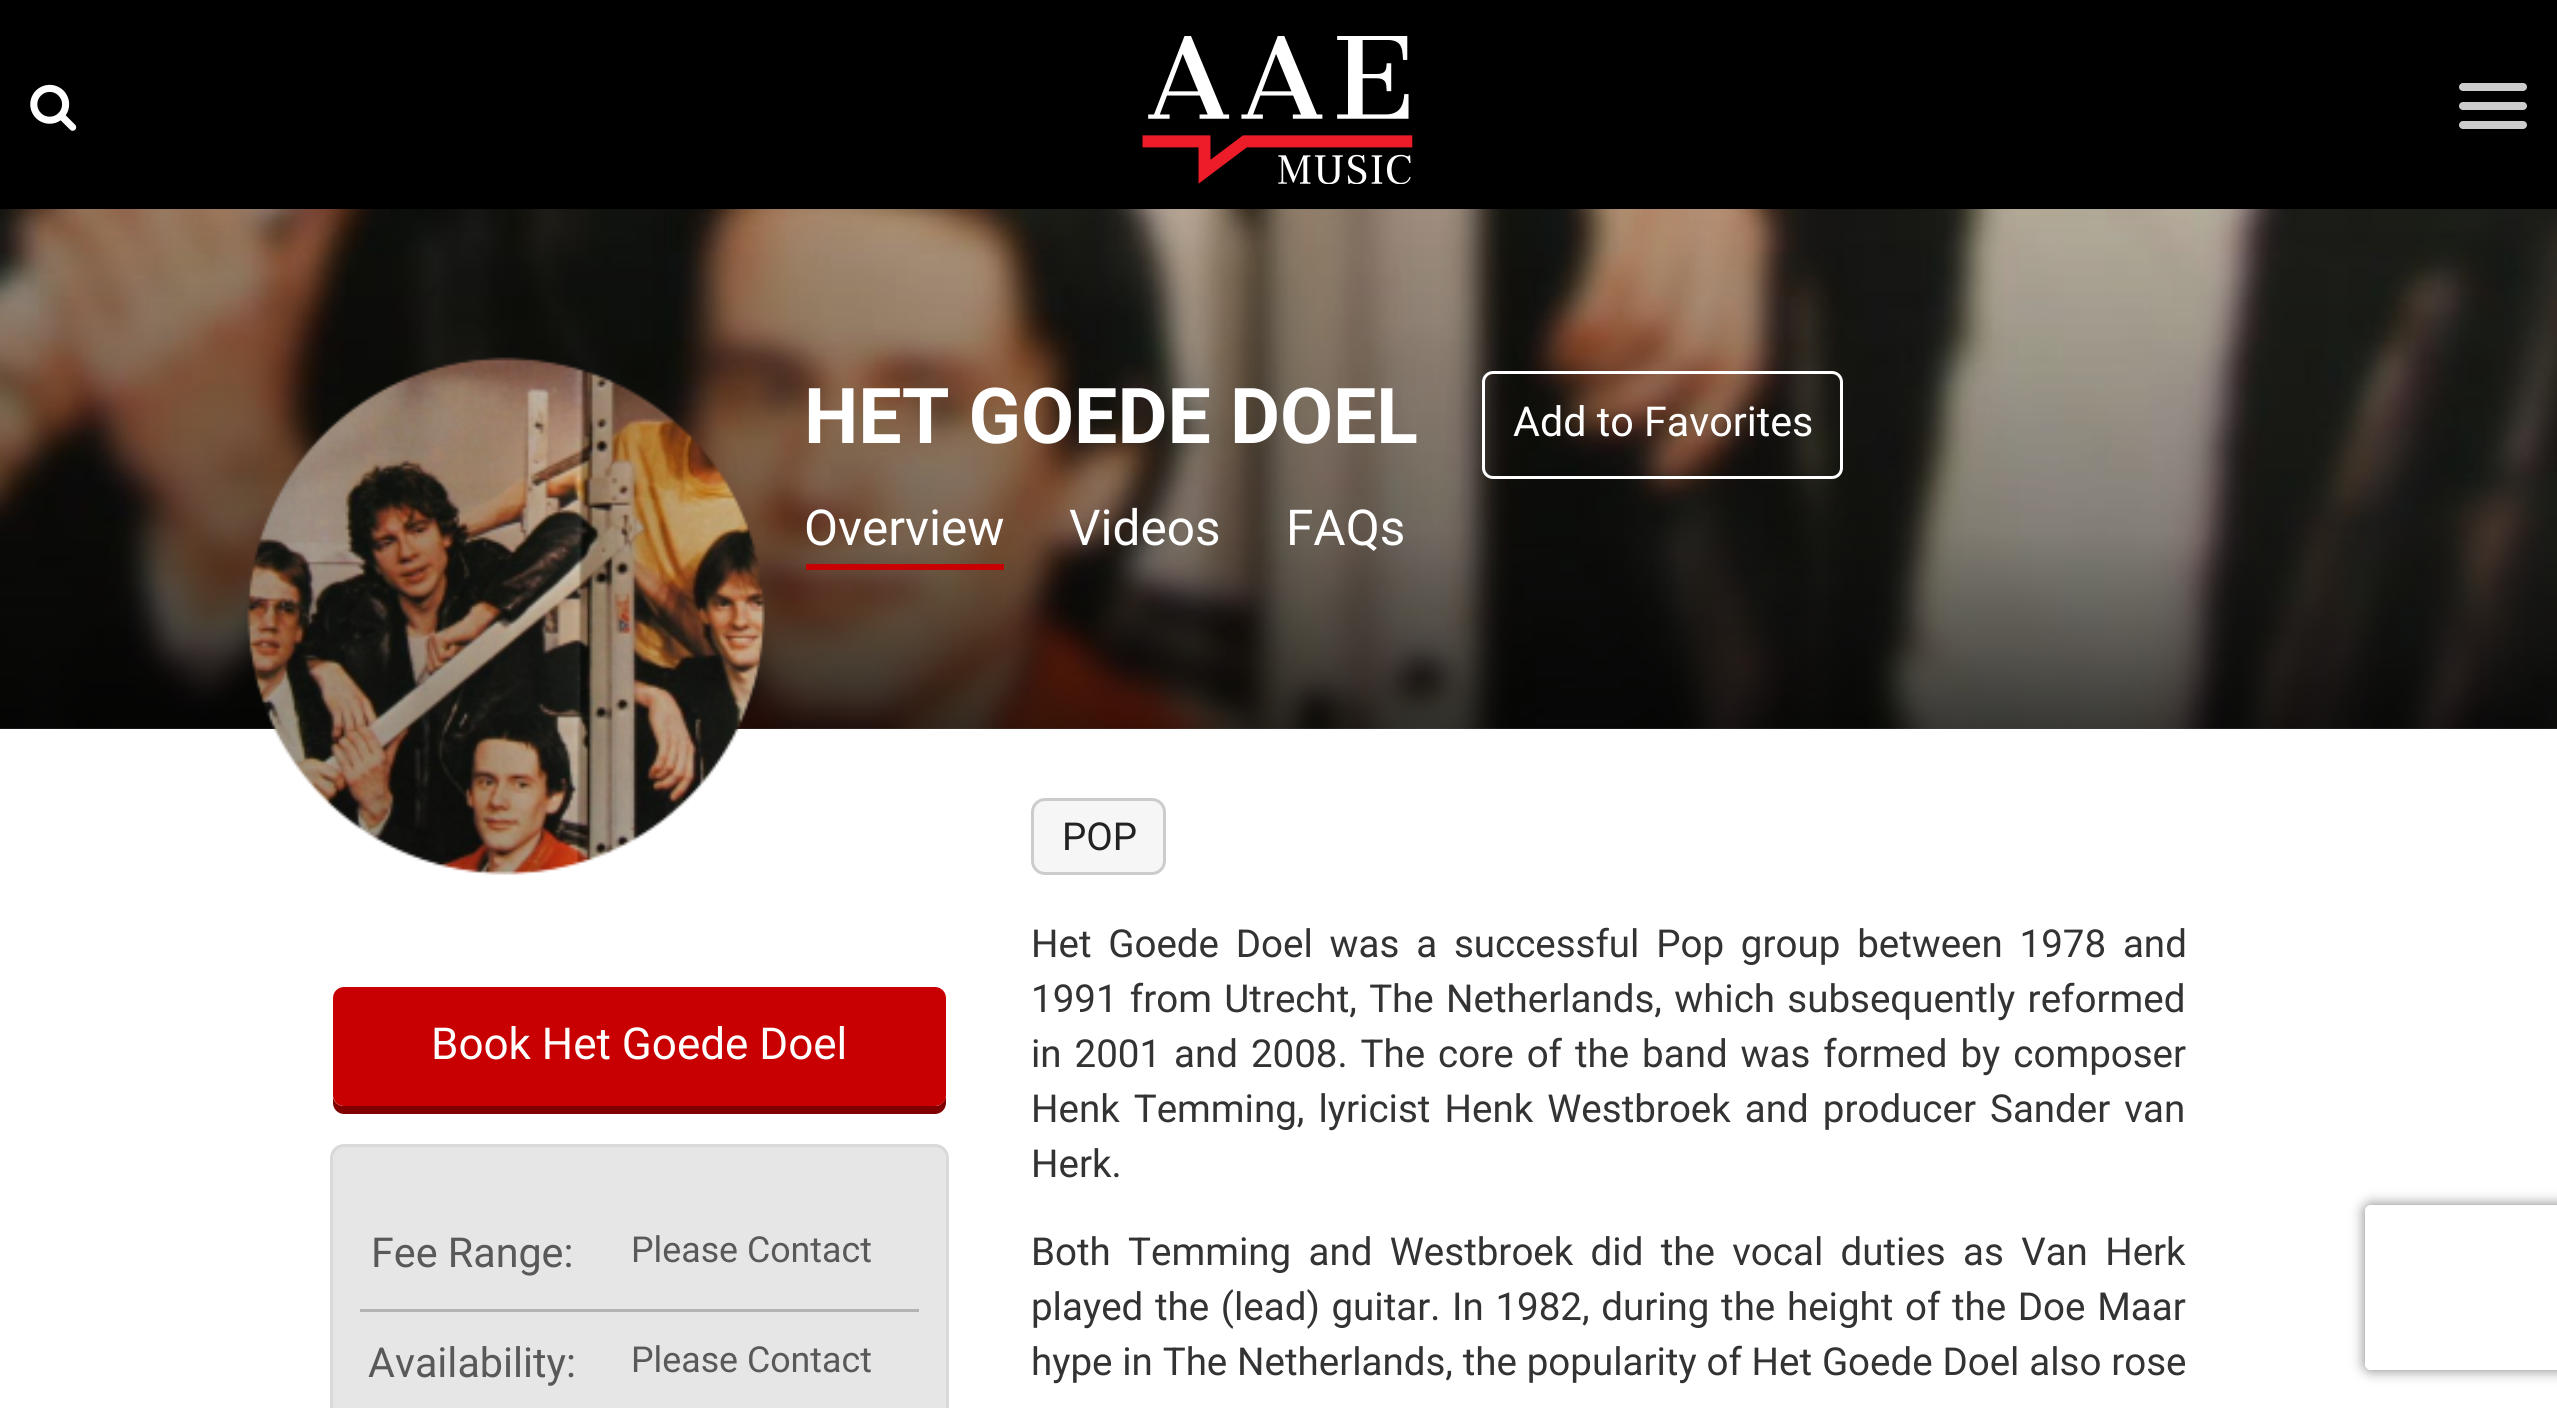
#include <cairo.h>
#include <math.h>
#include <stddef.h>

static cairo_t *ctx;

static void use_color(int r, int g, int b) {
    cairo_set_source_rgb(ctx, r / 255.0, g / 255.0, b / 255.0);
}

static void spaced_text(double x, double y, const char *s, double letter, double word) {
    cairo_move_to(ctx, x, y);
    while (*s) {
        char ch[5] = {0};
        int n = 0;
        do ch[n++] = *s++; while ((*s & 0xC0) == 0x80);
        cairo_show_text(ctx, ch);
        cairo_rel_move_to(ctx, letter + word * (*ch == ' '), 0);
    }
}

static void round_rect(double x, double y, double w, double h, double r) {
    cairo_new_sub_path(ctx);
    cairo_arc(ctx, x + w - r, y + h - r, r, 0, M_PI / 2);
    cairo_arc(ctx, x + r, y + h - r, r, M_PI / 2, M_PI);
    cairo_arc(ctx, x + r, y + r, r, M_PI, 1.5 * M_PI);
    cairo_arc(ctx, x + w - r, y + r, r, 1.5 * M_PI, 2 * M_PI);
    cairo_close_path(ctx);
}

static void shadow(double x, double y, double w, double h, double r, double blur, double alpha) {
    cairo_push_group_with_content(ctx, CAIRO_CONTENT_ALPHA);
    cairo_set_operator(ctx, CAIRO_OPERATOR_SOURCE);
    for (int i = 15; i >= -15 && fmin(w, h) + blur * i / 3 > 0; i -= 2) {
        double e = blur * i / 6;
        cairo_set_source_rgba(ctx, 0, 0, 0, alpha * erfc((i - 1) / 8.5) / 2);
        round_rect(x - e, y - e, w + 2 * e, h + 2 * e, fmax(0, fmin(r + e + blur * .6, fmin(w, h) / 2 + e)));
        cairo_fill(ctx);
    }
    cairo_pattern_t *soft = cairo_pop_group(ctx);
    cairo_mask(ctx, soft);
    cairo_pattern_destroy(soft);
}

static void picture(const char *path, double x, double y, double w, double h) {
    cairo_surface_t *image = cairo_image_surface_create_from_png(path);
    cairo_save(ctx);
    cairo_set_source_surface(ctx, image, x, y);
    cairo_rectangle(ctx, x, y, w, h);
    cairo_fill(ctx);
    cairo_restore(ctx);
    cairo_surface_destroy(image);
}

int main(void) {
    cairo_surface_t *surface = cairo_image_surface_create(CAIRO_FORMAT_RGB24, 2557, 1408);
    ctx = cairo_create(surface);
    cairo_font_options_t *options = cairo_font_options_create();
    cairo_font_options_set_hint_metrics(options, CAIRO_HINT_METRICS_OFF);
    cairo_font_options_set_hint_style(options, CAIRO_HINT_STYLE_NONE);
    cairo_set_font_options(ctx, options);
    cairo_set_miter_limit(ctx, 4);
    cairo_pattern_t *gradient;
    use_color(255, 255, 255);
    cairo_paint(ctx);
    use_color(0, 0, 0);
    cairo_rectangle(ctx, 0, 0, 2557, 209);
    cairo_fill(ctx);
    picture("img1.png", 30, 84, 47, 47);
    picture("img2.png", 1142, 36, 271, 148);
    use_color(204, 204, 204);
    round_rect(2459, 83, 68, 8, 4);
    cairo_fill(ctx);
    round_rect(2459, 102, 68, 8, 4);
    cairo_fill(ctx);
    round_rect(2459, 121, 68, 8, 4);
    cairo_fill(ctx);
    picture("img3.png", 0, 209, 2557, 520);
    gradient = cairo_pattern_create_linear(1279, 165, 1279, 729);
    cairo_pattern_add_color_stop_rgba(gradient, 0, 0, 0, 0, 0);
    cairo_pattern_add_color_stop_rgba(gradient, 0.65, 0, 0, 0, 0.3);
    cairo_pattern_add_color_stop_rgba(gradient, 1, 0, 0, 0, 0.7);
    cairo_set_source(ctx, gradient);
    cairo_pattern_destroy(gradient);
    cairo_rectangle(ctx, 0, 209, 2557, 520);
    cairo_fill(ctx);
    picture("img4.png", 247, 357, 518, 518);
    cairo_select_font_face(ctx, "Roboto", CAIRO_FONT_SLANT_NORMAL, CAIRO_FONT_WEIGHT_BOLD);
    cairo_set_font_size(ctx, 77);
    use_color(255, 255, 255);
    cairo_move_to(ctx, 804, 443);
    cairo_show_text(ctx, "HET GOEDE DOEL");
    round_rect(1483.5, 372.5, 358, 105, 9.5);
    cairo_set_line_width(ctx, 3);
    cairo_stroke(ctx);
    cairo_select_font_face(ctx, "Roboto", CAIRO_FONT_SLANT_NORMAL, CAIRO_FONT_WEIGHT_NORMAL);
    cairo_set_font_size(ctx, 41.25);
    cairo_move_to(ctx, 1513, 436);
    cairo_show_text(ctx, "Add to Favorites");
    use_color(201, 0, 1);
    cairo_rectangle(ctx, 806, 564, 198, 6);
    cairo_fill(ctx);
    cairo_set_font_size(ctx, 49.5);
    use_color(255, 255, 255);
    cairo_move_to(ctx, 804, 545);
    cairo_show_text(ctx, "Overview");
    cairo_move_to(ctx, 1069, 545);
    cairo_show_text(ctx, "Videos");
    cairo_move_to(ctx, 1286, 545);
    cairo_show_text(ctx, "FAQs");
    use_color(128, 0, 0);
    cairo_new_path(ctx);
    cairo_move_to(ctx, 333, 1097);
    cairo_line_to(ctx, 333, 1103);
    cairo_curve_to(ctx, 333, 1109, 338, 1114, 344, 1114);
    cairo_line_to(ctx, 935, 1114);
    cairo_curve_to(ctx, 941, 1114, 946, 1109, 946, 1103);
    cairo_line_to(ctx, 946, 1094);
    cairo_curve_to(ctx, 946, 1101, 941, 1106, 935, 1106);
    cairo_line_to(ctx, 344, 1106);
    cairo_curve_to(ctx, 338, 1106, 334, 1102, 333, 1097);
    cairo_close_path(ctx);
    cairo_fill(ctx);
    use_color(201, 0, 1);
    round_rect(333, 987, 613, 119, 11);
    cairo_fill(ctx);
    cairo_set_font_size(ctx, 44);
    use_color(255, 255, 255);
    cairo_move_to(ctx, 431, 1059);
    cairo_show_text(ctx, "Book Het Goede Doel");
    use_color(230, 230, 230);
    round_rect(331.5, 1145.5, 616, 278, 12.5);
    cairo_fill_preserve(ctx);
    use_color(217, 217, 217);
    cairo_stroke(ctx);
    use_color(179, 179, 179);
    cairo_rectangle(ctx, 360, 1309, 559, 3);
    cairo_fill(ctx);
    cairo_set_font_size(ctx, 41.25);
    use_color(89, 89, 89);
    cairo_move_to(ctx, 371, 1267);
    cairo_show_text(ctx, "Fee Range:");
    cairo_set_font_size(ctx, 35.75);
    cairo_move_to(ctx, 631, 1262);
    cairo_show_text(ctx, "Please Contact");
    cairo_set_font_size(ctx, 41.25);
    cairo_move_to(ctx, 368, 1377);
    cairo_show_text(ctx, "Availability:");
    cairo_set_font_size(ctx, 35.75);
    cairo_move_to(ctx, 631, 1372);
    cairo_show_text(ctx, "Please Contact");
    use_color(246, 246, 246);
    round_rect(1032.5, 799.5, 132, 74, 12.5);
    cairo_fill_preserve(ctx);
    use_color(204, 204, 204);
    cairo_stroke(ctx);
    cairo_set_font_size(ctx, 38.5);
    use_color(34, 34, 34);
    cairo_move_to(ctx, 1062, 850);
    cairo_show_text(ctx, "POP");
    use_color(51, 51, 51);
    spaced_text(1031, 957, "Het Goede Doel was a successful Pop group between 1978 and", 0, 7.25);
    spaced_text(1031, 1012, "1991 from Utrecht, The Netherlands, which subsequently reformed", 0, 2.75);
    spaced_text(1031, 1067, "in 2001 and 2008. The core of the band was formed by composer", 0, 3.4);
    spaced_text(1031, 1122, "Henk Temming, lyricist Henk Westbroek and producer Sander van", 0, 4.5);
    cairo_move_to(ctx, 1031, 1177);
    cairo_show_text(ctx, "Herk.");
    spaced_text(1031, 1265, "Both Temming and Westbroek did the vocal duties as Van Herk", 0, 7.75);
    spaced_text(1031, 1320, "played the (lead) guitar. In 1982, during the height of the Doe Maar", 0, 2.1);
    spaced_text(1031, 1375, "hype in The Netherlands, the popularity of Het Goede Doel also rose", 0, 0.25);
    cairo_save(ctx);
    cairo_set_fill_rule(ctx, CAIRO_FILL_RULE_EVEN_ODD);
    cairo_new_path(ctx);
    cairo_move_to(ctx, 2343, 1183);
    cairo_line_to(ctx, 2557, 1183);
    cairo_line_to(ctx, 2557, 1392);
    cairo_line_to(ctx, 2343, 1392);
    cairo_close_path(ctx);
    cairo_move_to(ctx, 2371, 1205);
    cairo_line_to(ctx, 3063, 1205);
    cairo_curve_to(ctx, 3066.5, 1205, 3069, 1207.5, 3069, 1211);
    cairo_line_to(ctx, 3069, 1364);
    cairo_curve_to(ctx, 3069, 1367.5, 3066.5, 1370, 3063, 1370);
    cairo_line_to(ctx, 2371, 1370);
    cairo_curve_to(ctx, 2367.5, 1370, 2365, 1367.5, 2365, 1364);
    cairo_line_to(ctx, 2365, 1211);
    cairo_curve_to(ctx, 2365, 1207.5, 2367.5, 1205, 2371, 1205);
    cairo_close_path(ctx);
    cairo_clip(ctx);
    use_color(128, 128, 128);
    shadow(2365, 1205, 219, 165, 6, 7, 1);
    cairo_restore(ctx);
    cairo_surface_write_to_png(surface, "result.png");
    cairo_font_options_destroy(options);
    cairo_destroy(ctx);
    cairo_surface_destroy(surface);
    return 0;
}
